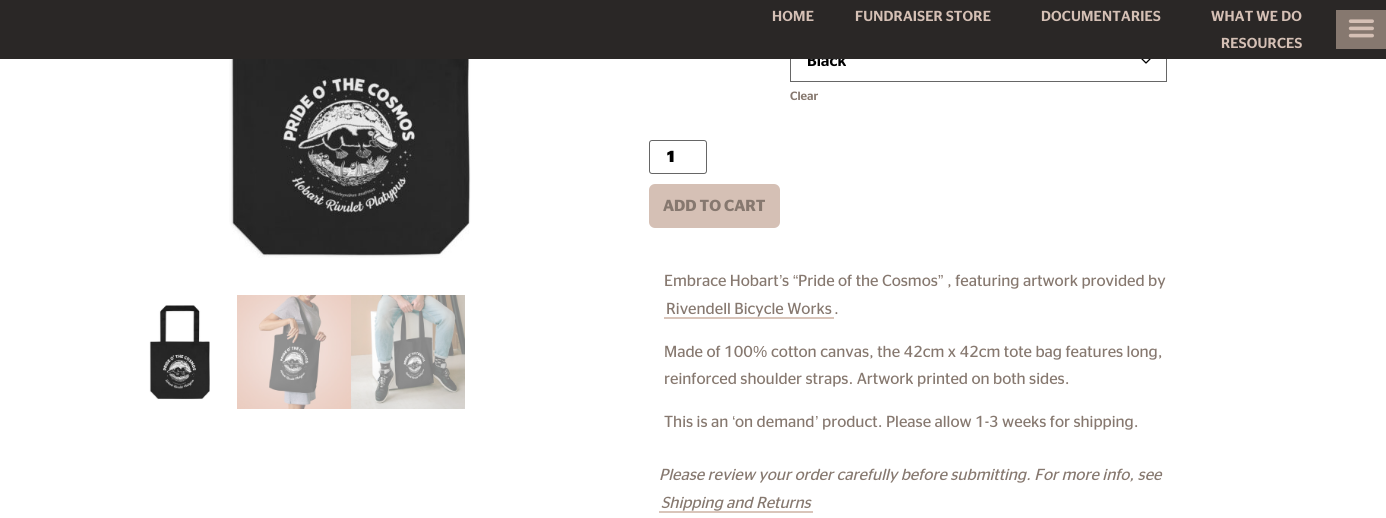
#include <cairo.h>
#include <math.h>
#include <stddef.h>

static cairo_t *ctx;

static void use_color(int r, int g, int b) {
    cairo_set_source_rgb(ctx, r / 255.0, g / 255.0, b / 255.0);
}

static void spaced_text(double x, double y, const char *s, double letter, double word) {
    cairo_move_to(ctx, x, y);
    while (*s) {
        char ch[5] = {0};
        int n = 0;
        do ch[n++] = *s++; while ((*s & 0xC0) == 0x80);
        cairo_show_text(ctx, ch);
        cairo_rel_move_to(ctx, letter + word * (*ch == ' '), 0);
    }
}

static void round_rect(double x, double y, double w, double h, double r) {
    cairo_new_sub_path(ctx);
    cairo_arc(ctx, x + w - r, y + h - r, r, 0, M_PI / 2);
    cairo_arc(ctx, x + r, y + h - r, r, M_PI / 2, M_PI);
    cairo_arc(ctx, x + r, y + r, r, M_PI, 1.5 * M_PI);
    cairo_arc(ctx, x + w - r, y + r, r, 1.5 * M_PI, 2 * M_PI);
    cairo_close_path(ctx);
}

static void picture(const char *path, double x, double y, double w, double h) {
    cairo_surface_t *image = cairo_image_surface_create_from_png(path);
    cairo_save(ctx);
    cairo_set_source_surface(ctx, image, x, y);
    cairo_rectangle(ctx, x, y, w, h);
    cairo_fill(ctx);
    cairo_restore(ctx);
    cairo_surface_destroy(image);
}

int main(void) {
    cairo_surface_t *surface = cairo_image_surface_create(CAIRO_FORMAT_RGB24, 1386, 518);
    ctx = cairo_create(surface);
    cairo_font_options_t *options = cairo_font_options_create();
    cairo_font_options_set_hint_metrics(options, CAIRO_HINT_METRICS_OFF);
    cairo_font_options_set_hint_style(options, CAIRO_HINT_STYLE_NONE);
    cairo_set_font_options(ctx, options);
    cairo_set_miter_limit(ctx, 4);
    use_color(255, 255, 255);
    cairo_paint(ctx);
    cairo_new_path(ctx);
    cairo_move_to(ctx, 1142, 59);
    cairo_line_to(ctx, 1146, 63);
    cairo_line_to(ctx, 1150, 59);
    use_color(0, 0, 0);
    cairo_set_line_width(ctx, 1.3);
    cairo_set_line_cap(ctx, CAIRO_LINE_CAP_ROUND);
    cairo_set_line_join(ctx, CAIRO_LINE_JOIN_ROUND);
    cairo_stroke(ctx);
    cairo_rectangle(ctx, 790.5, 41.5, 376, 40);
    use_color(102, 102, 102);
    cairo_set_line_width(ctx, 1);
    cairo_set_line_cap(ctx, CAIRO_LINE_CAP_BUTT);
    cairo_set_line_join(ctx, CAIRO_LINE_JOIN_MITER);
    cairo_stroke(ctx);
    cairo_select_font_face(ctx, "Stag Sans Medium", CAIRO_FONT_SLANT_NORMAL, CAIRO_FONT_WEIGHT_NORMAL);
    cairo_set_font_size(ctx, 16);
    use_color(0, 0, 0);
    cairo_move_to(ctx, 807, 66);
    cairo_show_text(ctx, "Black");
    use_color(42, 39, 38);
    cairo_rectangle(ctx, 0, 0, 1386, 59);
    cairo_fill(ctx);
    cairo_set_font_size(ctx, 14.5);
    use_color(213, 192, 181);
    spaced_text(772, 21, "HOME", 0.2, 0);
    spaced_text(855, 21, "FUNDRAISER STORE", 0.2, 0);
    spaced_text(1041, 21, "DOCUMENTARIES", 0.2, 0);
    spaced_text(1211, 21, "WHAT WE DO", 0.2, 0);
    spaced_text(1221, 48, "RESOURCES", 0.2, 0);
    use_color(134, 120, 111);
    cairo_rectangle(ctx, 1336, 10, 50, 39);
    cairo_fill(ctx);
    picture("img1.png", 1348, 19, 26, 19);
    picture("img2.png", 229, 59, 242, 199);
    picture("img3.png", 149, 305, 61, 95);
    picture("img4.png", 237, 295, 114, 114);
    picture("img5.png", 351, 295, 114, 114);
    cairo_set_font_size(ctx, 12);
    cairo_move_to(ctx, 790, 100);
    cairo_show_text(ctx, "Clear");
    round_rect(649.5, 140.5, 57, 33, 2.5);
    use_color(102, 102, 102);
    cairo_stroke(ctx);
    cairo_select_font_face(ctx, "Stag Sans", CAIRO_FONT_SLANT_NORMAL, CAIRO_FONT_WEIGHT_BOLD);
    cairo_set_font_size(ctx, 16);
    use_color(0, 0, 0);
    cairo_move_to(ctx, 666, 162);
    cairo_show_text(ctx, "1");
    use_color(213, 192, 181);
    round_rect(649, 184, 131, 44, 6);
    cairo_fill(ctx);
    cairo_select_font_face(ctx, "Stag Sans SemiBold", CAIRO_FONT_SLANT_NORMAL, CAIRO_FONT_WEIGHT_NORMAL);
    use_color(134, 120, 111);
    cairo_move_to(ctx, 663, 211);
    cairo_show_text(ctx, "ADD TO CART");
    cairo_select_font_face(ctx, "Stag Sans", CAIRO_FONT_SLANT_NORMAL, CAIRO_FONT_WEIGHT_NORMAL);
    cairo_move_to(ctx, 664, 286);
    cairo_show_text(ctx, "Embrace Hobart s");
    cairo_move_to(ctx, 798, 286);
    cairo_show_text(ctx, "Pride of the Cosmos");
    cairo_move_to(ctx, 947, 286);
    cairo_show_text(ctx, ", featuring artwork provided by");
    cairo_select_font_face(ctx, "Liberation Sans", CAIRO_FONT_SLANT_NORMAL, CAIRO_FONT_WEIGHT_NORMAL);
    cairo_move_to(ctx, 779, 286);
    cairo_show_text(ctx, "’");
    cairo_move_to(ctx, 793, 286);
    cairo_show_text(ctx, "“");
    cairo_move_to(ctx, 938, 286);
    cairo_show_text(ctx, "”");
    cairo_select_font_face(ctx, "Stag Sans", CAIRO_FONT_SLANT_NORMAL, CAIRO_FONT_WEIGHT_NORMAL);
    cairo_move_to(ctx, 666, 314);
    cairo_show_text(ctx, "Rivendell Bicycle Works");
    use_color(217, 197, 186);
    cairo_rectangle(ctx, 664, 317, 170, 2);
    cairo_fill(ctx);
    use_color(134, 120, 111);
    cairo_move_to(ctx, 834, 314);
    cairo_show_text(ctx, ".");
    cairo_move_to(ctx, 664, 357);
    cairo_show_text(ctx, "Made of 100");
    cairo_select_font_face(ctx, "Liberation Sans", CAIRO_FONT_SLANT_NORMAL, CAIRO_FONT_WEIGHT_NORMAL);
    cairo_move_to(ctx, 753, 357);
    cairo_show_text(ctx, "%");
    cairo_select_font_face(ctx, "Stag Sans", CAIRO_FONT_SLANT_NORMAL, CAIRO_FONT_WEIGHT_NORMAL);
    cairo_move_to(ctx, 771, 357);
    cairo_show_text(ctx, "cotton canvas, the 42cm x 42cm tote bag features long,");
    cairo_move_to(ctx, 664, 384);
    cairo_show_text(ctx, "reinforced shoulder straps. Artwork printed on both sides.");
    cairo_move_to(ctx, 664, 427);
    cairo_show_text(ctx, "This is an");
    cairo_select_font_face(ctx, "Liberation Sans", CAIRO_FONT_SLANT_NORMAL, CAIRO_FONT_WEIGHT_NORMAL);
    cairo_move_to(ctx, 732, 427);
    cairo_show_text(ctx, "‘");
    cairo_select_font_face(ctx, "Stag Sans", CAIRO_FONT_SLANT_NORMAL, CAIRO_FONT_WEIGHT_NORMAL);
    cairo_move_to(ctx, 735, 427);
    cairo_show_text(ctx, "on demand");
    cairo_select_font_face(ctx, "Liberation Sans", CAIRO_FONT_SLANT_NORMAL, CAIRO_FONT_WEIGHT_NORMAL);
    cairo_move_to(ctx, 815, 427);
    cairo_show_text(ctx, "’");
    cairo_select_font_face(ctx, "Stag Sans", CAIRO_FONT_SLANT_NORMAL, CAIRO_FONT_WEIGHT_NORMAL);
    cairo_move_to(ctx, 822, 427);
    cairo_show_text(ctx, "product. Please allow 1-3 weeks for shipping.");
    cairo_select_font_face(ctx, "Stag Sans", CAIRO_FONT_SLANT_ITALIC, CAIRO_FONT_WEIGHT_NORMAL);
    cairo_move_to(ctx, 659, 480);
    cairo_show_text(ctx, "Please review your order carefully before submitting. For more info, see");
    cairo_move_to(ctx, 661, 508);
    cairo_show_text(ctx, "Shipping and Returns");
    use_color(217, 197, 186);
    cairo_rectangle(ctx, 659, 511, 154, 2);
    cairo_fill(ctx);
    cairo_surface_write_to_png(surface, "result.png");
    cairo_font_options_destroy(options);
    cairo_destroy(ctx);
    cairo_surface_destroy(surface);
    return 0;
}
